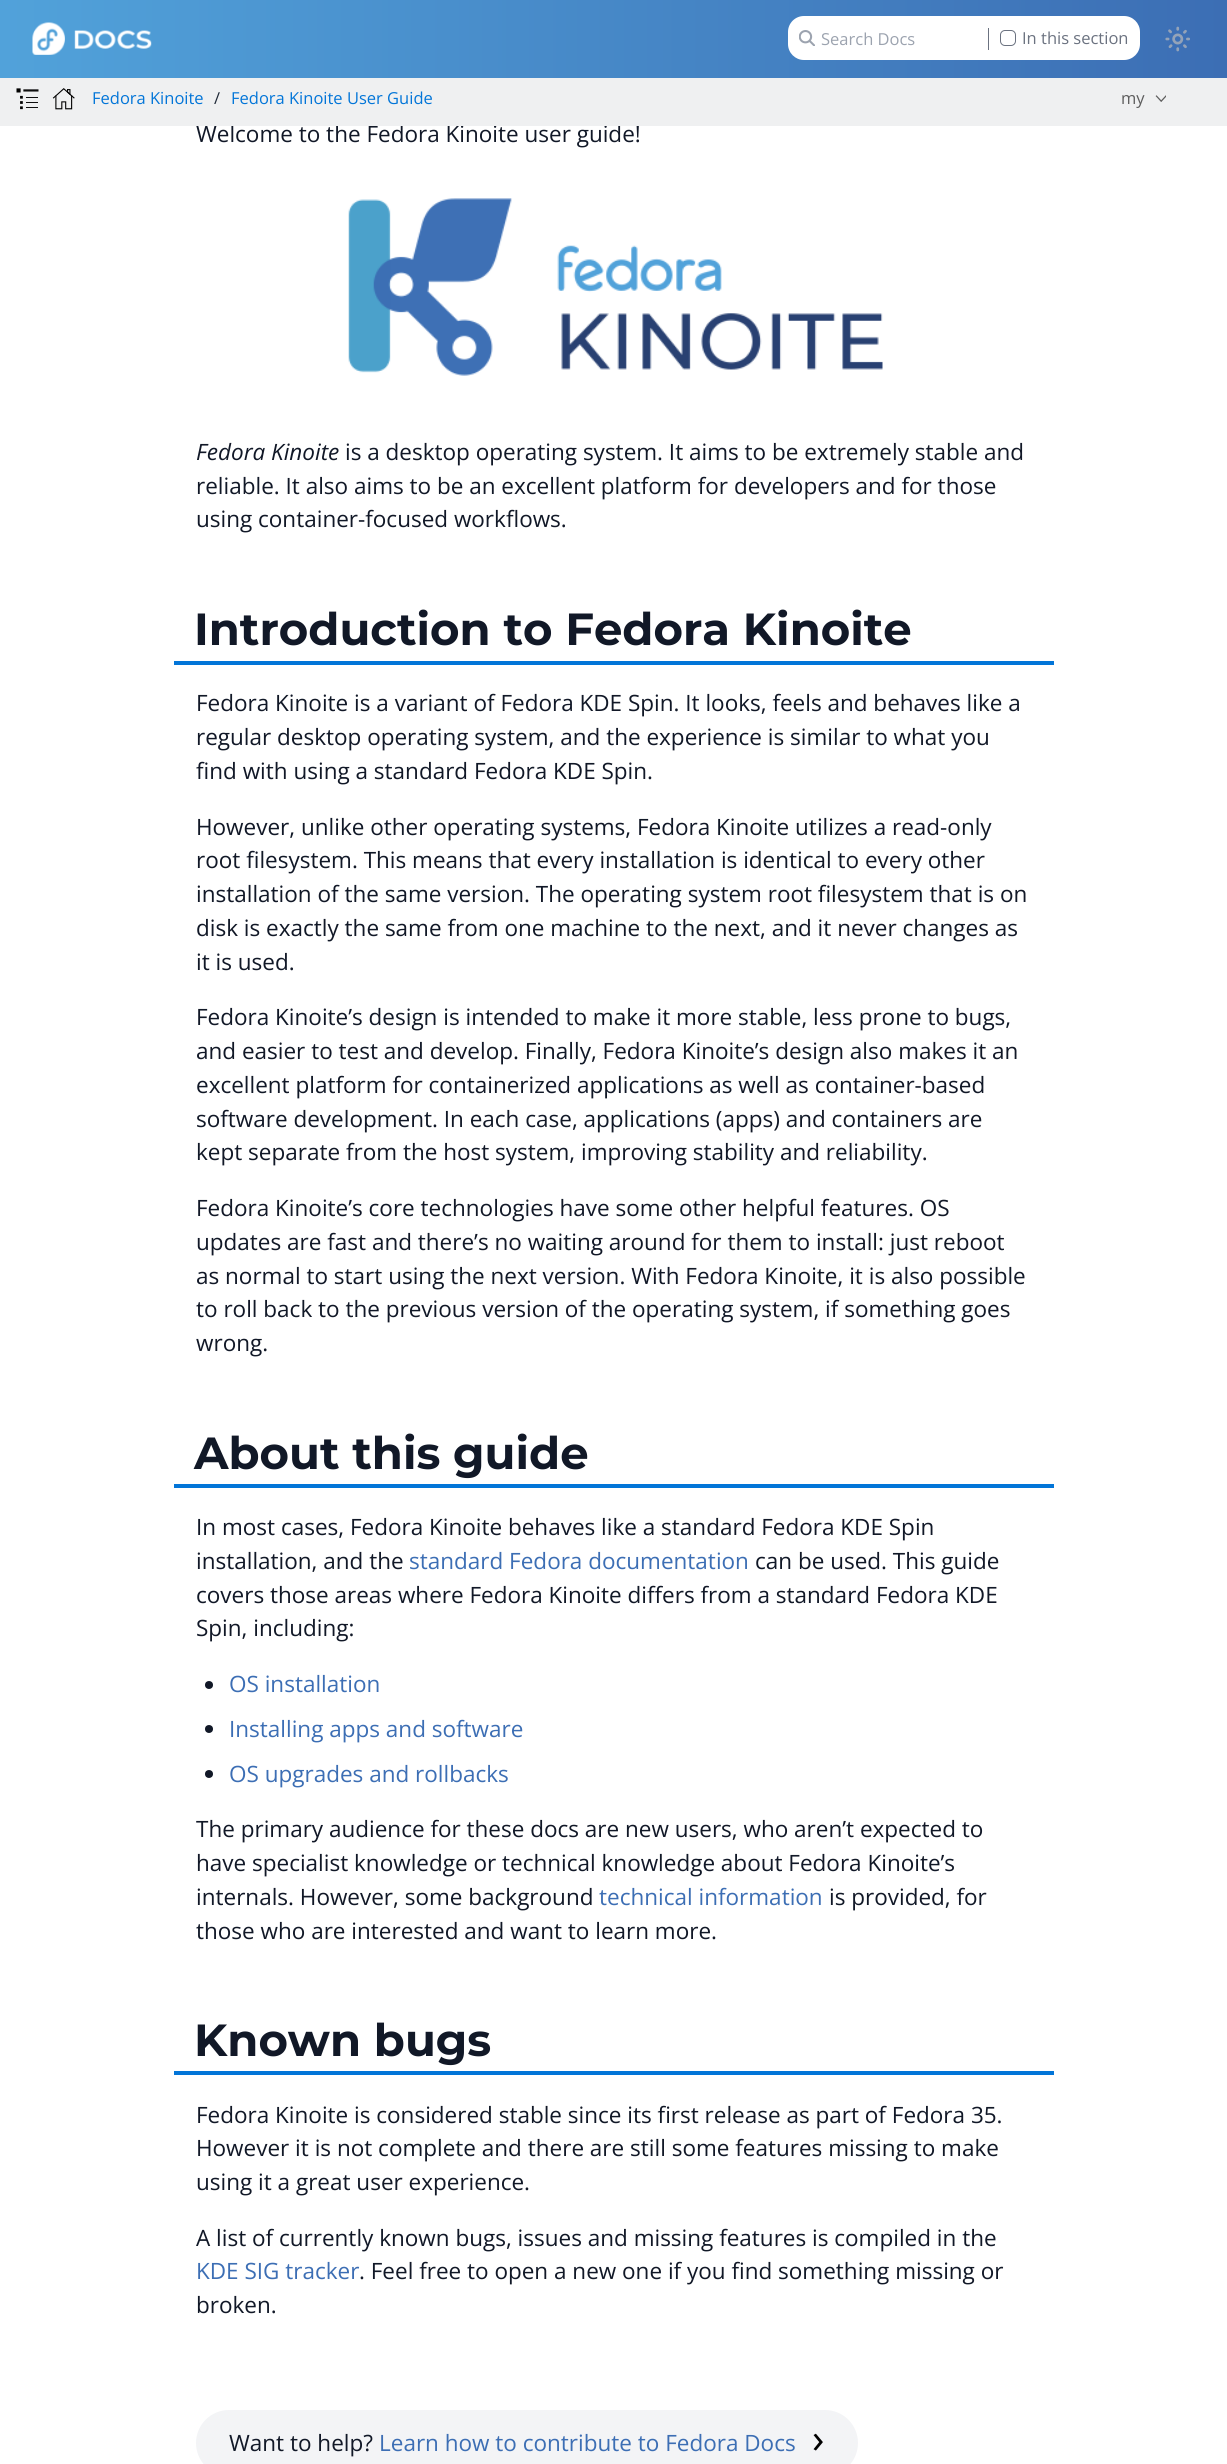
#include <cairo.h>
#include <math.h>
#include <stddef.h>

static cairo_t *ctx;

static void use_color(int r, int g, int b) {
    cairo_set_source_rgb(ctx, r / 255.0, g / 255.0, b / 255.0);
}

static void round_rect(double x, double y, double w, double h, double r) {
    cairo_new_sub_path(ctx);
    cairo_arc(ctx, x + w - r, y + h - r, r, 0, M_PI / 2);
    cairo_arc(ctx, x + r, y + h - r, r, M_PI / 2, M_PI);
    cairo_arc(ctx, x + r, y + r, r, M_PI, 1.5 * M_PI);
    cairo_arc(ctx, x + w - r, y + r, r, 1.5 * M_PI, 2 * M_PI);
    cairo_close_path(ctx);
}

static void picture(const char *path, double x, double y, double w, double h) {
    cairo_surface_t *image = cairo_image_surface_create_from_png(path);
    cairo_save(ctx);
    cairo_set_source_surface(ctx, image, x, y);
    cairo_rectangle(ctx, x, y, w, h);
    cairo_fill(ctx);
    cairo_restore(ctx);
    cairo_surface_destroy(image);
}

int main(void) {
    cairo_surface_t *surface = cairo_image_surface_create(CAIRO_FORMAT_RGB24, 1227, 2464);
    ctx = cairo_create(surface);
    cairo_font_options_t *options = cairo_font_options_create();
    cairo_font_options_set_hint_metrics(options, CAIRO_HINT_METRICS_OFF);
    cairo_font_options_set_hint_style(options, CAIRO_HINT_STYLE_NONE);
    cairo_set_font_options(ctx, options);
    cairo_set_miter_limit(ctx, 4);
    cairo_pattern_t *gradient;
    use_color(255, 255, 255);
    cairo_paint(ctx);
    gradient = cairo_pattern_create_linear(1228, 39, 0, 39);
    cairo_pattern_add_color_stop_rgba(gradient, 0, 0.235, 0.431, 0.706, 1);
    cairo_pattern_add_color_stop_rgba(gradient, 1, 0.318, 0.635, 0.855, 1);
    cairo_set_source(ctx, gradient);
    cairo_pattern_destroy(gradient);
    cairo_rectangle(ctx, 0, 0, 1227, 78);
    cairo_fill(ctx);
    picture("img1.png", 32, 22, 120, 33);
    use_color(255, 255, 255);
    round_rect(788, 16, 352, 44, 16);
    cairo_fill(ctx);
    picture("img2.png", 799, 30, 16, 16);
    cairo_select_font_face(ctx, "Open Sans", CAIRO_FONT_SLANT_NORMAL, CAIRO_FONT_WEIGHT_NORMAL);
    cairo_set_font_size(ctx, 16.5);
    use_color(156, 163, 175);
    cairo_move_to(ctx, 821, 45);
    cairo_show_text(ctx, "Search Docs");
    use_color(107, 114, 128);
    cairo_rectangle(ctx, 988, 28, 1, 22);
    cairo_fill(ctx);
    round_rect(1000.5, 30.5, 15, 15, 4.5);
    cairo_set_line_width(ctx, 1);
    cairo_stroke(ctx);
    cairo_move_to(ctx, 1022, 44);
    cairo_show_text(ctx, "In this section");
    picture("img3.png", 1165, 26, 25, 26);
    cairo_set_font_size(ctx, 22.5);
    use_color(17, 24, 39);
    cairo_move_to(ctx, 196, 142);
    cairo_show_text(ctx, "Welcome to the Fedora Kinoite user guide!");
    use_color(239, 240, 241);
    cairo_rectangle(ctx, 0, 78, 1227, 48);
    cairo_fill(ctx);
    picture("img4.png", 16, 88, 23, 22);
    picture("img5.png", 52, 88, 23, 22);
    cairo_set_font_size(ctx, 16.5);
    use_color(2, 117, 216);
    cairo_move_to(ctx, 92, 104);
    cairo_show_text(ctx, "Fedora Kinoite");
    use_color(31, 41, 55);
    cairo_move_to(ctx, 214, 104);
    cairo_show_text(ctx, "/");
    use_color(2, 117, 216);
    cairo_move_to(ctx, 231, 104);
    cairo_show_text(ctx, "Fedora Kinoite User Guide");
    picture("img6.png", 1155, 95, 11, 7);
    use_color(93, 93, 93);
    cairo_move_to(ctx, 1121, 104);
    cairo_show_text(ctx, "my");
    picture("img7.png", 348, 198, 535, 178);
    cairo_select_font_face(ctx, "Open Sans", CAIRO_FONT_SLANT_ITALIC, CAIRO_FONT_WEIGHT_NORMAL);
    cairo_set_font_size(ctx, 22.5);
    use_color(17, 24, 39);
    cairo_move_to(ctx, 196, 460);
    cairo_show_text(ctx, "Fedora Kinoite");
    cairo_select_font_face(ctx, "Open Sans", CAIRO_FONT_SLANT_NORMAL, CAIRO_FONT_WEIGHT_NORMAL);
    cairo_move_to(ctx, 345, 460);
    cairo_show_text(ctx, "is a desktop operating system. It aims to be extremely stable and");
    cairo_move_to(ctx, 196, 494);
    cairo_show_text(ctx, "reliable. It also aims to be an excellent platform for developers and for those");
    cairo_move_to(ctx, 196, 527);
    cairo_show_text(ctx, "using container-focused workflows.");
    use_color(2, 117, 216);
    cairo_rectangle(ctx, 174, 661, 880, 4);
    cairo_fill(ctx);
    cairo_select_font_face(ctx, "Montserrat", CAIRO_FONT_SLANT_NORMAL, CAIRO_FONT_WEIGHT_BOLD);
    cairo_set_font_size(ctx, 45);
    use_color(17, 24, 39);
    cairo_move_to(ctx, 194, 645);
    cairo_show_text(ctx, "Introduction to Fedora Kinoite");
    cairo_select_font_face(ctx, "Open Sans", CAIRO_FONT_SLANT_NORMAL, CAIRO_FONT_WEIGHT_NORMAL);
    cairo_set_font_size(ctx, 22.5);
    cairo_move_to(ctx, 196, 711);
    cairo_show_text(ctx, "Fedora Kinoite is a variant of Fedora KDE Spin. It looks, feels and behaves like a");
    cairo_move_to(ctx, 196, 745);
    cairo_show_text(ctx, "regular desktop operating system, and the experience is similar to what you");
    cairo_move_to(ctx, 196, 779);
    cairo_show_text(ctx, "find with using a standard Fedora KDE Spin.");
    cairo_move_to(ctx, 196, 835);
    cairo_show_text(ctx, "However, unlike other operating systems, Fedora Kinoite utilizes a read-only");
    cairo_move_to(ctx, 196, 868);
    cairo_show_text(ctx, "root filesystem. This means that every installation is identical to every other");
    cairo_move_to(ctx, 196, 902);
    cairo_show_text(ctx, "installation of the same version. The operating system root filesystem that is on");
    cairo_move_to(ctx, 196, 936);
    cairo_show_text(ctx, "disk is exactly the same from one machine to the next, and it never changes as");
    cairo_move_to(ctx, 196, 970);
    cairo_show_text(ctx, "it is used.");
    cairo_move_to(ctx, 196, 1025);
    cairo_show_text(ctx, "Fedora Kinoite’s design is intended to make it more stable, less prone to bugs,");
    cairo_move_to(ctx, 196, 1059);
    cairo_show_text(ctx, "and easier to test and develop. Finally, Fedora Kinoite’s design also makes it an");
    cairo_move_to(ctx, 196, 1093);
    cairo_show_text(ctx, "excellent platform for containerized applications as well as container-based");
    cairo_move_to(ctx, 196, 1127);
    cairo_show_text(ctx, "software development. In each case, applications (apps) and containers are");
    cairo_move_to(ctx, 196, 1160);
    cairo_show_text(ctx, "kept separate from the host system, improving stability and reliability.");
    cairo_move_to(ctx, 196, 1216);
    cairo_show_text(ctx, "Fedora Kinoite’s core technologies have some other helpful features. OS");
    cairo_move_to(ctx, 196, 1250);
    cairo_show_text(ctx, "updates are fast and there’s no waiting around for them to install: just reboot");
    cairo_move_to(ctx, 196, 1284);
    cairo_show_text(ctx, "as normal to start using the next version. With Fedora Kinoite, it is also possible");
    cairo_move_to(ctx, 196, 1317);
    cairo_show_text(ctx, "to roll back to the previous version of the operating system, if something goes");
    cairo_move_to(ctx, 196, 1351);
    cairo_show_text(ctx, "wrong.");
    use_color(2, 117, 216);
    cairo_rectangle(ctx, 174, 1484, 880, 4);
    cairo_fill(ctx);
    cairo_select_font_face(ctx, "Montserrat", CAIRO_FONT_SLANT_NORMAL, CAIRO_FONT_WEIGHT_BOLD);
    cairo_set_font_size(ctx, 45);
    use_color(17, 24, 39);
    cairo_move_to(ctx, 194, 1469);
    cairo_show_text(ctx, "About this guide");
    cairo_select_font_face(ctx, "Open Sans", CAIRO_FONT_SLANT_NORMAL, CAIRO_FONT_WEIGHT_NORMAL);
    cairo_set_font_size(ctx, 22.5);
    cairo_move_to(ctx, 196, 1535);
    cairo_show_text(ctx, "In most cases, Fedora Kinoite behaves like a standard Fedora KDE Spin");
    cairo_move_to(ctx, 196, 1569);
    cairo_show_text(ctx, "installation, and the");
    use_color(60, 110, 180);
    cairo_move_to(ctx, 409, 1569);
    cairo_show_text(ctx, "standard Fedora documentation");
    use_color(17, 24, 39);
    cairo_move_to(ctx, 755, 1569);
    cairo_show_text(ctx, "can be used. This guide");
    cairo_move_to(ctx, 196, 1603);
    cairo_show_text(ctx, "covers those areas where Fedora Kinoite differs from a standard Fedora KDE");
    cairo_move_to(ctx, 196, 1636);
    cairo_show_text(ctx, "Spin, including:");
    cairo_new_path(ctx);
    cairo_arc(ctx, 209, 1685, 4, 0, 2 * M_PI);
    cairo_fill(ctx);
    use_color(60, 110, 180);
    cairo_move_to(ctx, 229, 1692);
    cairo_show_text(ctx, "OS installation");
    use_color(17, 24, 39);
    cairo_new_path(ctx);
    cairo_arc(ctx, 209, 1729, 4, 0, 2 * M_PI);
    cairo_fill(ctx);
    use_color(60, 110, 180);
    cairo_move_to(ctx, 229, 1737);
    cairo_show_text(ctx, "Installing apps and software");
    use_color(17, 24, 39);
    cairo_new_path(ctx);
    cairo_arc(ctx, 209, 1774, 4, 0, 2 * M_PI);
    cairo_fill(ctx);
    use_color(60, 110, 180);
    cairo_move_to(ctx, 229, 1782);
    cairo_show_text(ctx, "OS upgrades and rollbacks");
    use_color(17, 24, 39);
    cairo_move_to(ctx, 196, 1837);
    cairo_show_text(ctx, "The primary audience for these docs are new users, who aren’t expected to");
    cairo_move_to(ctx, 196, 1871);
    cairo_show_text(ctx, "have specialist knowledge or technical knowledge about Fedora Kinoite’s");
    cairo_move_to(ctx, 196, 1905);
    cairo_show_text(ctx, "internals. However, some background");
    use_color(60, 110, 180);
    cairo_move_to(ctx, 599, 1905);
    cairo_show_text(ctx, "technical information");
    use_color(17, 24, 39);
    cairo_move_to(ctx, 829, 1905);
    cairo_show_text(ctx, "is provided, for");
    cairo_move_to(ctx, 196, 1939);
    cairo_show_text(ctx, "those who are interested and want to learn more.");
    use_color(2, 117, 216);
    cairo_rectangle(ctx, 174, 2071, 880, 4);
    cairo_fill(ctx);
    cairo_select_font_face(ctx, "Montserrat", CAIRO_FONT_SLANT_NORMAL, CAIRO_FONT_WEIGHT_BOLD);
    cairo_set_font_size(ctx, 45);
    use_color(17, 24, 39);
    cairo_move_to(ctx, 194, 2056);
    cairo_show_text(ctx, "Known bugs");
    cairo_select_font_face(ctx, "Open Sans", CAIRO_FONT_SLANT_NORMAL, CAIRO_FONT_WEIGHT_NORMAL);
    cairo_set_font_size(ctx, 22.5);
    cairo_move_to(ctx, 196, 2123);
    cairo_show_text(ctx, "Fedora Kinoite is considered stable since its first release as part of Fedora 35.");
    cairo_move_to(ctx, 196, 2156);
    cairo_show_text(ctx, "However it is not complete and there are still some features missing to make");
    cairo_move_to(ctx, 196, 2190);
    cairo_show_text(ctx, "using it a great user experience.");
    cairo_move_to(ctx, 196, 2246);
    cairo_show_text(ctx, "A list of currently known bugs, issues and missing features is compiled in the");
    use_color(60, 110, 180);
    cairo_move_to(ctx, 196, 2279);
    cairo_show_text(ctx, "KDE SIG tracker");
    use_color(17, 24, 39);
    cairo_move_to(ctx, 359, 2279);
    cairo_show_text(ctx, ". Feel free to open a new one if you find something missing or");
    cairo_move_to(ctx, 196, 2313);
    cairo_show_text(ctx, "broken.");
    use_color(243, 244, 246);
    round_rect(196, 2410, 662, 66, 33);
    cairo_fill(ctx);
    use_color(17, 24, 39);
    cairo_move_to(ctx, 229, 2451);
    cairo_show_text(ctx, "Want to help?");
    use_color(60, 110, 180);
    cairo_move_to(ctx, 379, 2451);
    cairo_show_text(ctx, "Learn how to contribute to Fedora Docs");
    cairo_set_font_size(ctx, 41);
    use_color(0, 0, 0);
    cairo_move_to(ctx, 812, 2453);
    cairo_show_text(ctx, "›");
    cairo_surface_write_to_png(surface, "result.png");
    cairo_font_options_destroy(options);
    cairo_destroy(ctx);
    cairo_surface_destroy(surface);
    return 0;
}
